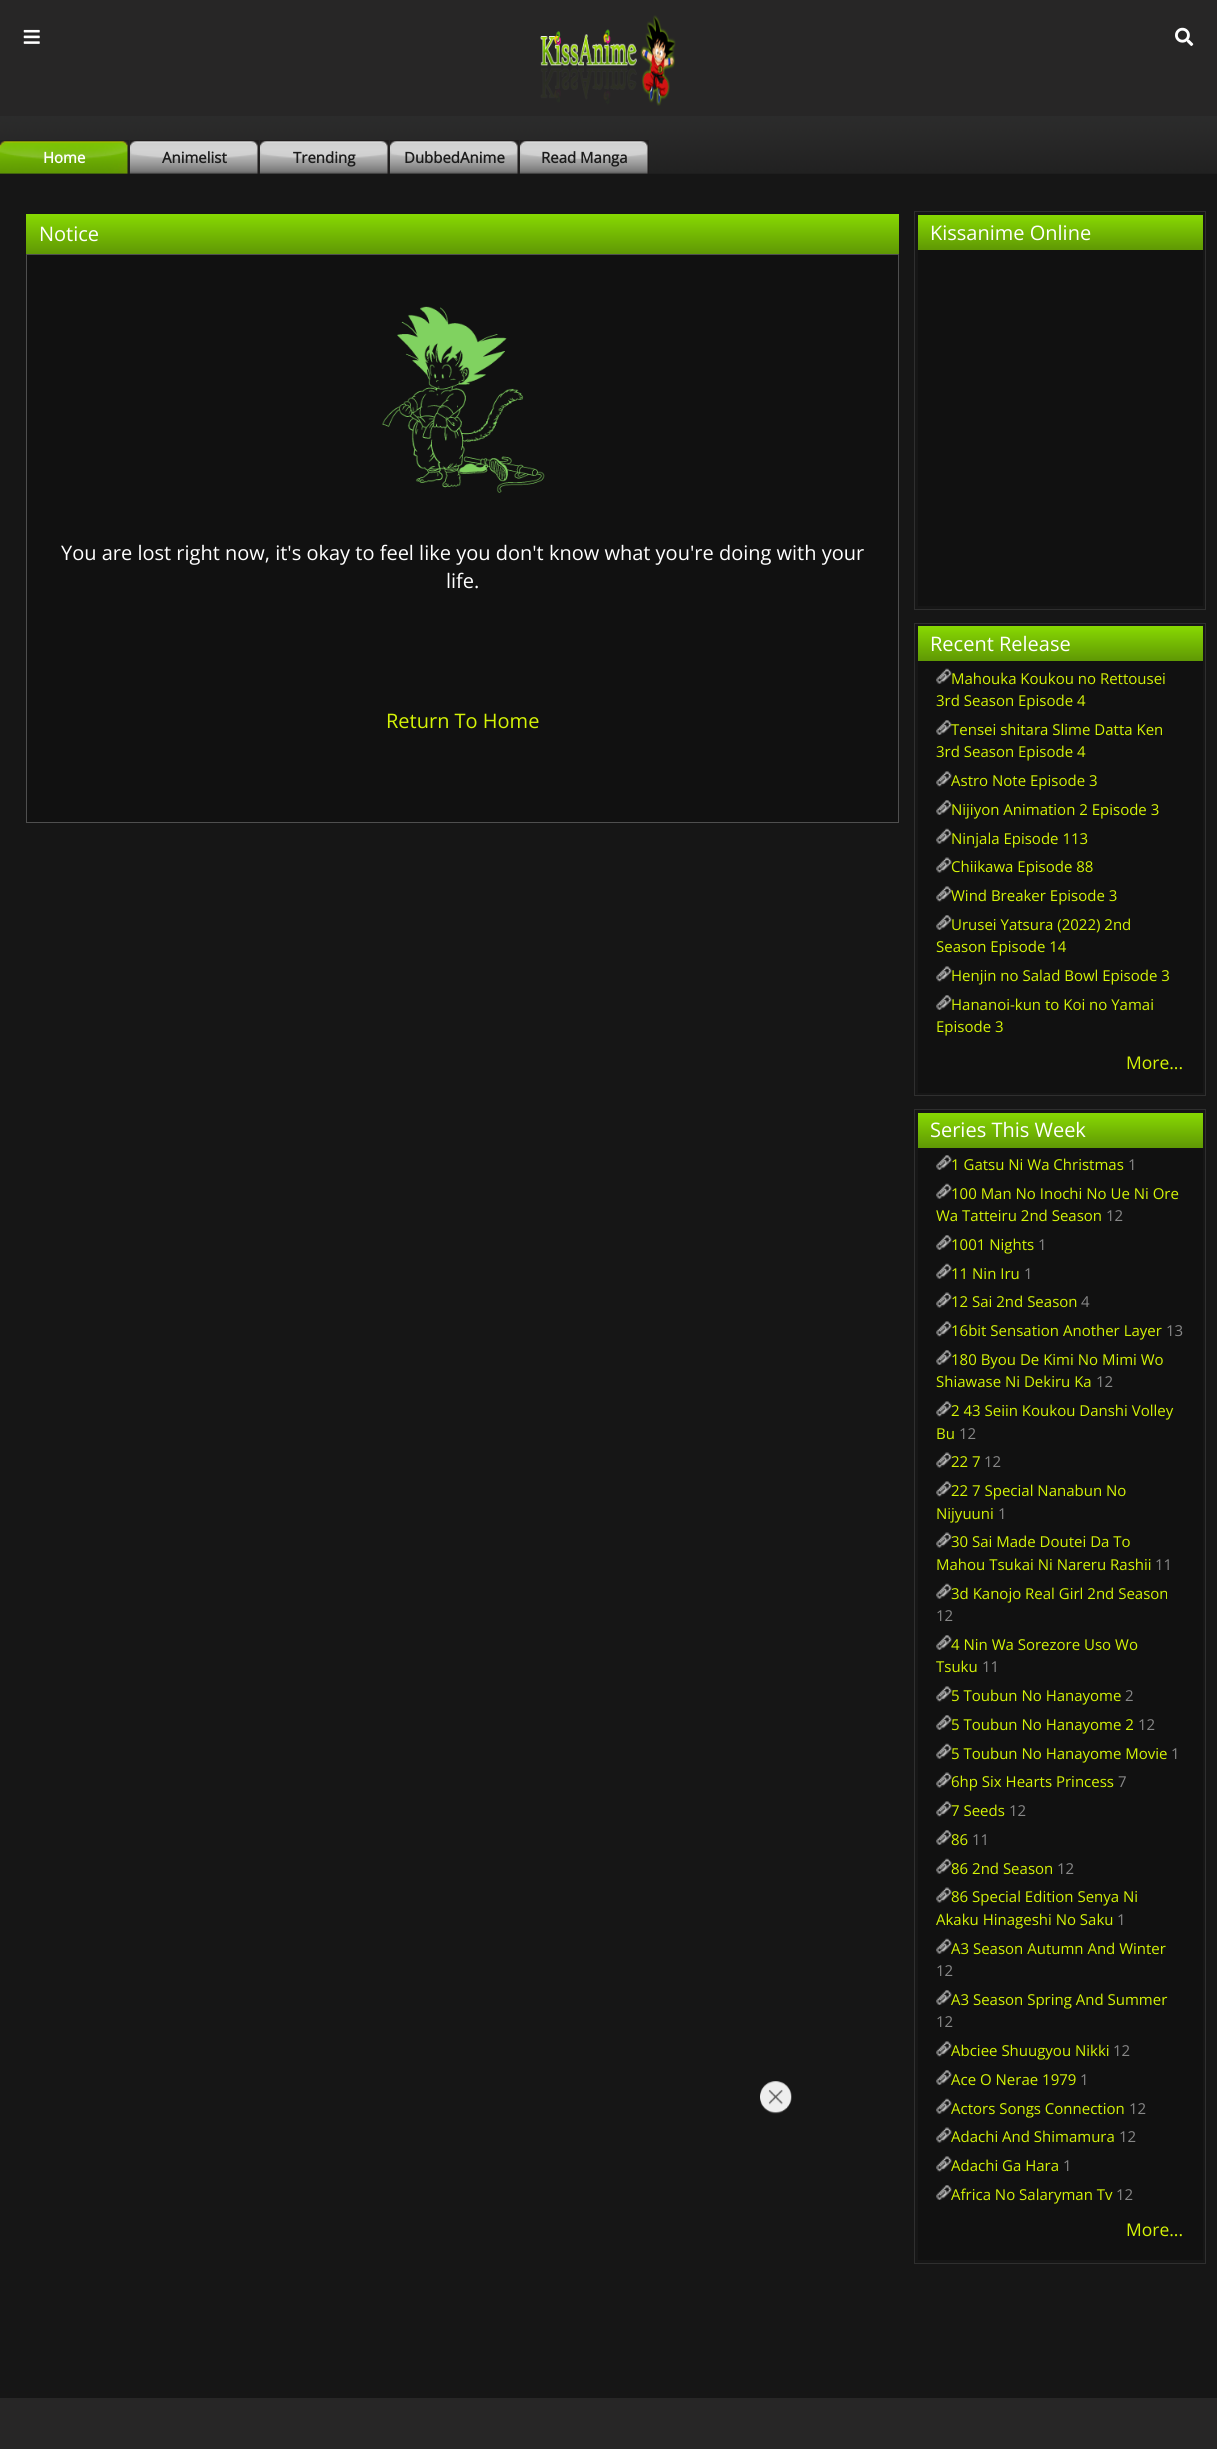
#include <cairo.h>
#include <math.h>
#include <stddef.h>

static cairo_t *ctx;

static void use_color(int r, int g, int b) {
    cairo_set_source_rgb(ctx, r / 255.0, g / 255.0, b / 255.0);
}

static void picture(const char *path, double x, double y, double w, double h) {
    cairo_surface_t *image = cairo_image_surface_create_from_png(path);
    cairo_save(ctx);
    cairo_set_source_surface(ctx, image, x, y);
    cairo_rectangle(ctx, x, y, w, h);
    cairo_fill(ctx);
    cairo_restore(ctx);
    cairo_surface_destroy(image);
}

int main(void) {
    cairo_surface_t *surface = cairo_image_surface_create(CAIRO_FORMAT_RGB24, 1217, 2449);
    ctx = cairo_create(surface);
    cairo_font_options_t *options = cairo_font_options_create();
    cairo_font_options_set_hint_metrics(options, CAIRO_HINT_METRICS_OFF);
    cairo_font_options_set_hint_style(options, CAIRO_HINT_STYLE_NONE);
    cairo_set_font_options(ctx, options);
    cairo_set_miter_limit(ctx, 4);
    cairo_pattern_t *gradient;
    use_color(22, 22, 22);
    cairo_paint(ctx);
    use_color(39, 38, 38);
    cairo_rectangle(ctx, 0, 0, 1217, 116);
    cairo_fill(ctx);
    picture("img1.png", 23, 29, 17, 15);
    picture("img2.png", 540, 15, 136, 91);
    picture("img3.png", 1175, 27, 19, 19);
    picture("img4.png", 0, 116, 1217, 58);
    picture("img5.png", 0, 140, 129, 34);
    cairo_select_font_face(ctx, "Open Sans", CAIRO_FONT_SLANT_NORMAL, CAIRO_FONT_WEIGHT_BOLD);
    cairo_set_font_size(ctx, 15);
    use_color(255, 255, 255);
    cairo_move_to(ctx, 43, 163);
    cairo_show_text(ctx, "Home");
    picture("img6.png", 130, 140, 129, 34);
    use_color(28, 28, 28);
    cairo_move_to(ctx, 162, 163);
    cairo_show_text(ctx, "Animelist");
    picture("img6.png", 260, 140, 129, 34);
    cairo_move_to(ctx, 293, 163);
    cairo_show_text(ctx, "Trending");
    picture("img6.png", 390, 140, 129, 34);
    cairo_move_to(ctx, 404, 163);
    cairo_show_text(ctx, "DubbedAnime");
    picture("img7.png", 520, 140, 129, 34);
    cairo_move_to(ctx, 541, 163);
    cairo_show_text(ctx, "Read Manga");
    gradient = cairo_pattern_create_linear(463, 214, 463, 254);
    cairo_pattern_add_color_stop_rgba(gradient, 0, 0.533, 0.851, 0.008, 1);
    cairo_pattern_add_color_stop_rgba(gradient, 1, 0.373, 0.596, 0.016, 1);
    cairo_set_source(ctx, gradient);
    cairo_pattern_destroy(gradient);
    cairo_rectangle(ctx, 26, 214, 873, 40);
    cairo_fill(ctx);
    cairo_select_font_face(ctx, "Open Sans", CAIRO_FONT_SLANT_NORMAL, CAIRO_FONT_WEIGHT_NORMAL);
    cairo_set_font_size(ctx, 20);
    use_color(255, 255, 255);
    cairo_move_to(ctx, 39, 241);
    cairo_show_text(ctx, "Notice");
    use_color(17, 17, 17);
    cairo_rectangle(ctx, 26.5, 254.5, 872, 568);
    cairo_fill_preserve(ctx);
    use_color(79, 79, 79);
    cairo_set_line_width(ctx, 1);
    cairo_stroke(ctx);
    picture("img8.png", 382, 306, 163, 187);
    use_color(255, 255, 255);
    cairo_move_to(ctx, 61, 560);
    cairo_show_text(ctx, "You are lost right now, it's okay to feel like you don't know what you're doing with your");
    cairo_move_to(ctx, 446, 588);
    cairo_show_text(ctx, "life.");
    use_color(213, 244, 6);
    cairo_move_to(ctx, 386, 728);
    cairo_show_text(ctx, "Return To Home");
    cairo_rectangle(ctx, 914.5, 211.5, 291, 398);
    use_color(47, 47, 47);
    cairo_stroke(ctx);
    gradient = cairo_pattern_create_linear(1060, 215, 1060, 250);
    cairo_pattern_add_color_stop_rgba(gradient, 0, 0.533, 0.851, 0.008, 1);
    cairo_pattern_add_color_stop_rgba(gradient, 1, 0.373, 0.596, 0.016, 1);
    cairo_set_source(ctx, gradient);
    cairo_pattern_destroy(gradient);
    cairo_rectangle(ctx, 918, 215, 285, 35);
    cairo_fill(ctx);
    use_color(255, 255, 255);
    cairo_move_to(ctx, 930, 240);
    cairo_show_text(ctx, "Kissanime Online");
    use_color(17, 17, 17);
    cairo_rectangle(ctx, 918, 250, 285, 356);
    cairo_fill(ctx);
    cairo_rectangle(ctx, 914.5, 623.5, 291, 472);
    use_color(47, 47, 47);
    cairo_stroke(ctx);
    gradient = cairo_pattern_create_linear(1060, 626, 1060, 661);
    cairo_pattern_add_color_stop_rgba(gradient, 0, 0.533, 0.851, 0.008, 1);
    cairo_pattern_add_color_stop_rgba(gradient, 1, 0.373, 0.596, 0.016, 1);
    cairo_set_source(ctx, gradient);
    cairo_pattern_destroy(gradient);
    cairo_rectangle(ctx, 918, 626, 285, 35);
    cairo_fill(ctx);
    use_color(255, 255, 255);
    cairo_move_to(ctx, 930, 651);
    cairo_show_text(ctx, "Recent Release");
    use_color(17, 17, 17);
    cairo_rectangle(ctx, 918, 661, 285, 432);
    cairo_fill(ctx);
    picture("img9.png", 936, 668, 16, 16);
    cairo_set_font_size(ctx, 15);
    use_color(213, 244, 6);
    cairo_move_to(ctx, 951, 684);
    cairo_show_text(ctx, "Mahouka Koukou no Rettousei");
    cairo_move_to(ctx, 936, 706);
    cairo_show_text(ctx, "3rd Season Episode 4");
    picture("img10.png", 936, 720, 16, 15);
    cairo_move_to(ctx, 951, 735);
    cairo_show_text(ctx, "Tensei shitara Slime Datta Ken");
    cairo_move_to(ctx, 936, 757);
    cairo_show_text(ctx, "3rd Season Episode 4");
    picture("img11.png", 936, 771, 16, 16);
    cairo_move_to(ctx, 951, 786);
    cairo_show_text(ctx, "Astro Note Episode 3");
    picture("img10.png", 936, 800, 16, 15);
    cairo_move_to(ctx, 951, 815);
    cairo_show_text(ctx, "Nijiyon Animation 2 Episode 3");
    picture("img9.png", 936, 828, 16, 16);
    cairo_move_to(ctx, 951, 844);
    cairo_show_text(ctx, "Ninjala Episode 113");
    picture("img12.png", 936, 857, 16, 16);
    cairo_move_to(ctx, 951, 872);
    cairo_show_text(ctx, "Chiikawa Episode 88");
    picture("img13.png", 936, 886, 16, 16);
    cairo_move_to(ctx, 951, 901);
    cairo_show_text(ctx, "Wind Breaker Episode 3");
    picture("img10.png", 936, 915, 16, 15);
    cairo_move_to(ctx, 951, 930);
    cairo_show_text(ctx, "Urusei Yatsura (2022) 2nd");
    cairo_move_to(ctx, 936, 952);
    cairo_show_text(ctx, "Season Episode 14");
    picture("img13.png", 936, 966, 16, 16);
    cairo_move_to(ctx, 951, 981);
    cairo_show_text(ctx, "Henjin no Salad Bowl Episode 3");
    picture("img10.png", 936, 995, 16, 15);
    cairo_move_to(ctx, 951, 1010);
    cairo_show_text(ctx, "Hananoi-kun to Koi no Yamai");
    cairo_move_to(ctx, 936, 1032);
    cairo_show_text(ctx, "Episode 3");
    cairo_set_font_size(ctx, 17.5);
    cairo_move_to(ctx, 1126, 1069);
    cairo_show_text(ctx, "More...");
    cairo_rectangle(ctx, 914.5, 1109.5, 291, 1154);
    use_color(47, 47, 47);
    cairo_stroke(ctx);
    gradient = cairo_pattern_create_linear(1060, 1113, 1060, 1148);
    cairo_pattern_add_color_stop_rgba(gradient, 0, 0.533, 0.851, 0.008, 1);
    cairo_pattern_add_color_stop_rgba(gradient, 1, 0.373, 0.596, 0.016, 1);
    cairo_set_source(ctx, gradient);
    cairo_pattern_destroy(gradient);
    cairo_rectangle(ctx, 918, 1113, 285, 35);
    cairo_fill(ctx);
    cairo_set_font_size(ctx, 20);
    use_color(255, 255, 255);
    cairo_move_to(ctx, 930, 1137);
    cairo_show_text(ctx, "Series This Week");
    use_color(17, 17, 17);
    cairo_rectangle(ctx, 918, 1148, 285, 1112);
    cairo_fill(ctx);
    picture("img10.png", 936, 1155, 16, 15);
    cairo_set_font_size(ctx, 15);
    use_color(213, 244, 6);
    cairo_move_to(ctx, 951, 1170);
    cairo_show_text(ctx, "1 Gatsu Ni Wa Christmas");
    use_color(136, 136, 136);
    cairo_move_to(ctx, 1128, 1170);
    cairo_show_text(ctx, "1");
    picture("img9.png", 936, 1183, 16, 16);
    use_color(213, 244, 6);
    cairo_move_to(ctx, 951, 1199);
    cairo_show_text(ctx, "100 Man No Inochi No Ue Ni Ore");
    cairo_move_to(ctx, 936, 1221);
    cairo_show_text(ctx, "Wa Tatteiru 2nd Season");
    use_color(136, 136, 136);
    cairo_move_to(ctx, 1106, 1221);
    cairo_show_text(ctx, "12");
    picture("img10.png", 936, 1235, 16, 15);
    use_color(213, 244, 6);
    cairo_move_to(ctx, 951, 1250);
    cairo_show_text(ctx, "1001 Nights");
    use_color(136, 136, 136);
    cairo_move_to(ctx, 1038, 1250);
    cairo_show_text(ctx, "1");
    picture("img9.png", 936, 1263, 16, 16);
    use_color(213, 244, 6);
    cairo_move_to(ctx, 951, 1279);
    cairo_show_text(ctx, "11 Nin Iru");
    use_color(136, 136, 136);
    cairo_move_to(ctx, 1024, 1279);
    cairo_show_text(ctx, "1");
    picture("img12.png", 936, 1292, 16, 16);
    use_color(213, 244, 6);
    cairo_move_to(ctx, 951, 1307);
    cairo_show_text(ctx, "12 Sai 2nd Season");
    use_color(136, 136, 136);
    cairo_move_to(ctx, 1081, 1307);
    cairo_show_text(ctx, "4");
    picture("img13.png", 936, 1321, 16, 16);
    use_color(213, 244, 6);
    cairo_move_to(ctx, 951, 1336);
    cairo_show_text(ctx, "16bit Sensation Another Layer");
    use_color(136, 136, 136);
    cairo_move_to(ctx, 1166, 1336);
    cairo_show_text(ctx, "13");
    picture("img10.png", 936, 1350, 16, 15);
    use_color(213, 244, 6);
    cairo_move_to(ctx, 951, 1365);
    cairo_show_text(ctx, "180 Byou De Kimi No Mimi Wo");
    cairo_move_to(ctx, 936, 1387);
    cairo_show_text(ctx, "Shiawase Ni Dekiru Ka");
    use_color(136, 136, 136);
    cairo_move_to(ctx, 1096, 1387);
    cairo_show_text(ctx, "12");
    picture("img13.png", 936, 1401, 16, 16);
    use_color(213, 244, 6);
    cairo_move_to(ctx, 951, 1416);
    cairo_show_text(ctx, "2 43 Seiin Koukou Danshi Volley");
    cairo_move_to(ctx, 936, 1439);
    cairo_show_text(ctx, "Bu");
    use_color(136, 136, 136);
    cairo_move_to(ctx, 959, 1439);
    cairo_show_text(ctx, "12");
    picture("img12.png", 936, 1452, 16, 16);
    use_color(213, 244, 6);
    cairo_move_to(ctx, 951, 1467);
    cairo_show_text(ctx, "22 7");
    use_color(136, 136, 136);
    cairo_move_to(ctx, 984, 1467);
    cairo_show_text(ctx, "12");
    picture("img13.png", 936, 1481, 16, 16);
    use_color(213, 244, 6);
    cairo_move_to(ctx, 951, 1496);
    cairo_show_text(ctx, "22 7 Special Nanabun No");
    cairo_move_to(ctx, 936, 1519);
    cairo_show_text(ctx, "Nijyuuni");
    use_color(136, 136, 136);
    cairo_move_to(ctx, 998, 1519);
    cairo_show_text(ctx, "1");
    picture("img12.png", 936, 1532, 16, 16);
    use_color(213, 244, 6);
    cairo_move_to(ctx, 951, 1547);
    cairo_show_text(ctx, "30 Sai Made Doutei Da To");
    cairo_move_to(ctx, 936, 1570);
    cairo_show_text(ctx, "Mahou Tsukai Ni Nareru Rashii");
    use_color(136, 136, 136);
    cairo_move_to(ctx, 1155, 1570);
    cairo_show_text(ctx, "11");
    picture("img9.png", 936, 1583, 16, 16);
    use_color(213, 244, 6);
    cairo_move_to(ctx, 951, 1599);
    cairo_show_text(ctx, "3d Kanojo Real Girl 2nd Season");
    use_color(136, 136, 136);
    cairo_move_to(ctx, 936, 1621);
    cairo_show_text(ctx, "12");
    picture("img10.png", 936, 1635, 16, 15);
    use_color(213, 244, 6);
    cairo_move_to(ctx, 951, 1650);
    cairo_show_text(ctx, "4 Nin Wa Sorezore Uso Wo");
    cairo_move_to(ctx, 936, 1672);
    cairo_show_text(ctx, "Tsuku");
    use_color(136, 136, 136);
    cairo_move_to(ctx, 982, 1672);
    cairo_show_text(ctx, "11");
    picture("img13.png", 936, 1686, 16, 16);
    use_color(213, 244, 6);
    cairo_move_to(ctx, 951, 1701);
    cairo_show_text(ctx, "5 Toubun No Hanayome");
    use_color(136, 136, 136);
    cairo_move_to(ctx, 1125, 1701);
    cairo_show_text(ctx, "2");
    picture("img10.png", 936, 1715, 16, 15);
    use_color(213, 244, 6);
    cairo_move_to(ctx, 951, 1730);
    cairo_show_text(ctx, "5 Toubun No Hanayome 2");
    use_color(136, 136, 136);
    cairo_move_to(ctx, 1138, 1730);
    cairo_show_text(ctx, "12");
    picture("img9.png", 936, 1743, 16, 16);
    use_color(213, 244, 6);
    cairo_move_to(ctx, 951, 1759);
    cairo_show_text(ctx, "5 Toubun No Hanayome Movie");
    use_color(136, 136, 136);
    cairo_move_to(ctx, 1171, 1759);
    cairo_show_text(ctx, "1");
    picture("img12.png", 936, 1772, 16, 16);
    use_color(213, 244, 6);
    cairo_move_to(ctx, 951, 1787);
    cairo_show_text(ctx, "6hp Six Hearts Princess");
    use_color(136, 136, 136);
    cairo_move_to(ctx, 1118, 1787);
    cairo_show_text(ctx, "7");
    picture("img13.png", 936, 1801, 16, 16);
    use_color(213, 244, 6);
    cairo_move_to(ctx, 951, 1816);
    cairo_show_text(ctx, "7 Seeds");
    use_color(136, 136, 136);
    cairo_move_to(ctx, 1009, 1816);
    cairo_show_text(ctx, "12");
    picture("img10.png", 936, 1830, 16, 15);
    use_color(213, 244, 6);
    cairo_move_to(ctx, 951, 1845);
    cairo_show_text(ctx, "86");
    use_color(136, 136, 136);
    cairo_move_to(ctx, 972, 1845);
    cairo_show_text(ctx, "11");
    picture("img9.png", 936, 1858, 16, 16);
    use_color(213, 244, 6);
    cairo_move_to(ctx, 951, 1874);
    cairo_show_text(ctx, "86 2nd Season");
    use_color(136, 136, 136);
    cairo_move_to(ctx, 1057, 1874);
    cairo_show_text(ctx, "12");
    picture("img12.png", 936, 1887, 16, 16);
    use_color(213, 244, 6);
    cairo_move_to(ctx, 951, 1902);
    cairo_show_text(ctx, "86 Special Edition Senya Ni");
    cairo_move_to(ctx, 936, 1925);
    cairo_show_text(ctx, "Akaku Hinageshi No Saku");
    use_color(136, 136, 136);
    cairo_move_to(ctx, 1117, 1925);
    cairo_show_text(ctx, "1");
    picture("img9.png", 936, 1938, 16, 16);
    use_color(213, 244, 6);
    cairo_move_to(ctx, 951, 1954);
    cairo_show_text(ctx, "A3 Season Autumn And Winter");
    use_color(136, 136, 136);
    cairo_move_to(ctx, 936, 1976);
    cairo_show_text(ctx, "12");
    picture("img10.png", 936, 1990, 16, 15);
    use_color(213, 244, 6);
    cairo_move_to(ctx, 951, 2005);
    cairo_show_text(ctx, "A3 Season Spring And Summer");
    use_color(136, 136, 136);
    cairo_move_to(ctx, 936, 2027);
    cairo_show_text(ctx, "12");
    picture("img11.png", 936, 2041, 16, 16);
    use_color(213, 244, 6);
    cairo_move_to(ctx, 951, 2056);
    cairo_show_text(ctx, "Abciee Shuugyou Nikki");
    use_color(136, 136, 136);
    cairo_move_to(ctx, 1113, 2056);
    cairo_show_text(ctx, "12");
    picture("img10.png", 936, 2070, 16, 15);
    use_color(213, 244, 6);
    cairo_move_to(ctx, 951, 2085);
    cairo_show_text(ctx, "Ace O Nerae 1979");
    use_color(136, 136, 136);
    cairo_move_to(ctx, 1080, 2085);
    cairo_show_text(ctx, "1");
    picture("img9.png", 936, 2098, 16, 16);
    use_color(213, 244, 6);
    cairo_move_to(ctx, 951, 2114);
    cairo_show_text(ctx, "Actors Songs Connection");
    use_color(136, 136, 136);
    cairo_move_to(ctx, 1129, 2114);
    cairo_show_text(ctx, "12");
    picture("img12.png", 936, 2127, 16, 16);
    use_color(213, 244, 6);
    cairo_move_to(ctx, 951, 2142);
    cairo_show_text(ctx, "Adachi And Shimamura");
    use_color(136, 136, 136);
    cairo_move_to(ctx, 1119, 2142);
    cairo_show_text(ctx, "12");
    picture("img13.png", 936, 2156, 16, 16);
    use_color(213, 244, 6);
    cairo_move_to(ctx, 951, 2171);
    cairo_show_text(ctx, "Adachi Ga Hara");
    use_color(136, 136, 136);
    cairo_move_to(ctx, 1063, 2171);
    cairo_show_text(ctx, "1");
    picture("img10.png", 936, 2185, 16, 15);
    use_color(213, 244, 6);
    cairo_move_to(ctx, 951, 2200);
    cairo_show_text(ctx, "Africa No Salaryman Tv");
    use_color(136, 136, 136);
    cairo_move_to(ctx, 1116, 2200);
    cairo_show_text(ctx, "12");
    cairo_set_font_size(ctx, 17.5);
    use_color(213, 244, 6);
    cairo_move_to(ctx, 1126, 2236);
    cairo_show_text(ctx, "More...");
    picture("img14.png", 760, 2081, 32, 33);
    use_color(39, 38, 38);
    cairo_rectangle(ctx, 0, 2398, 1217, 51);
    cairo_fill(ctx);
    cairo_surface_write_to_png(surface, "result.png");
    cairo_font_options_destroy(options);
    cairo_destroy(ctx);
    cairo_surface_destroy(surface);
    return 0;
}
